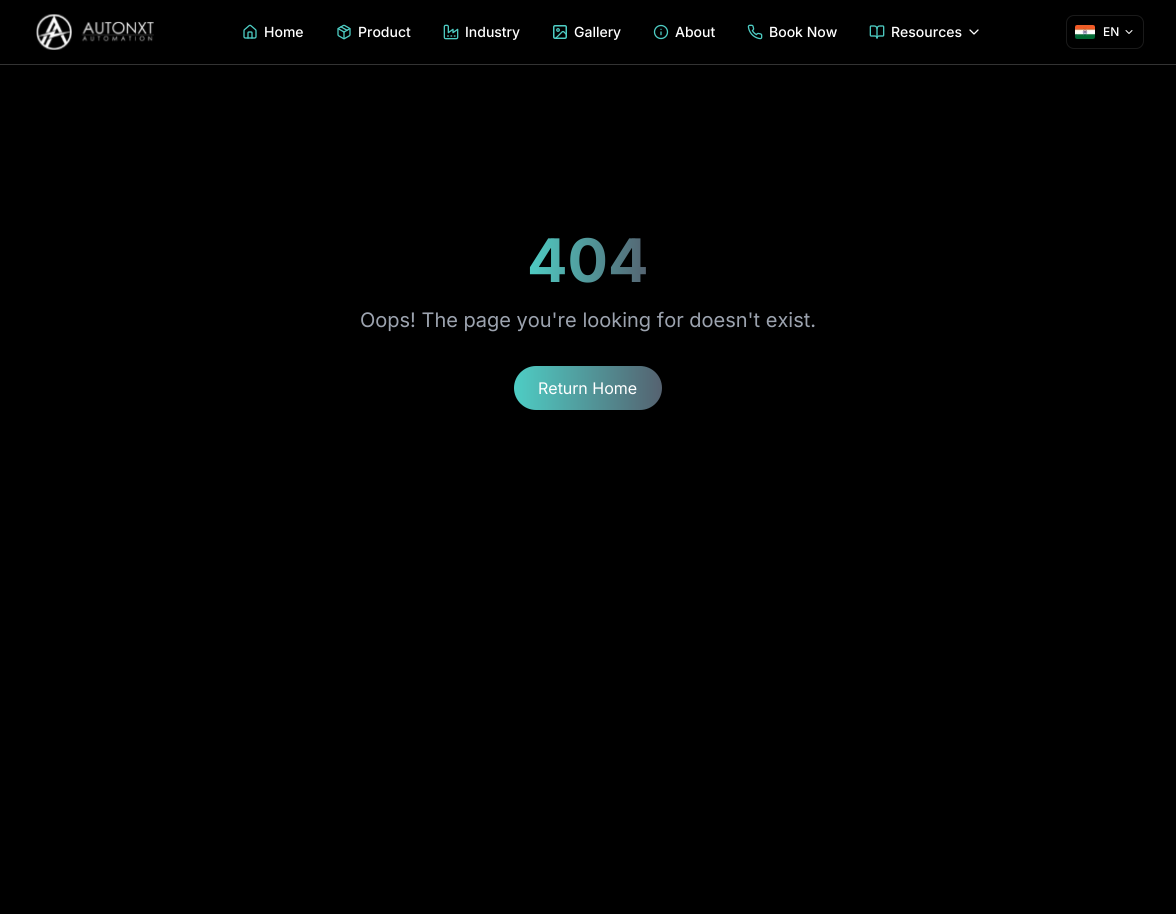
#include <cairo.h>
#include <math.h>
#include <stddef.h>

static cairo_t *ctx;

static void use_color(int r, int g, int b) {
    cairo_set_source_rgb(ctx, r / 255.0, g / 255.0, b / 255.0);
}

static void round_rect(double x, double y, double w, double h, double r) {
    cairo_new_sub_path(ctx);
    cairo_arc(ctx, x + w - r, y + h - r, r, 0, M_PI / 2);
    cairo_arc(ctx, x + r, y + h - r, r, M_PI / 2, M_PI);
    cairo_arc(ctx, x + r, y + r, r, M_PI, 1.5 * M_PI);
    cairo_arc(ctx, x + w - r, y + r, r, 1.5 * M_PI, 2 * M_PI);
    cairo_close_path(ctx);
}

static void picture(const char *path, double x, double y, double w, double h) {
    cairo_surface_t *image = cairo_image_surface_create_from_png(path);
    cairo_save(ctx);
    cairo_set_source_surface(ctx, image, x, y);
    cairo_rectangle(ctx, x, y, w, h);
    cairo_fill(ctx);
    cairo_restore(ctx);
    cairo_surface_destroy(image);
}

int main(void) {
    cairo_surface_t *surface = cairo_image_surface_create(CAIRO_FORMAT_RGB24, 1176, 914);
    ctx = cairo_create(surface);
    cairo_font_options_t *options = cairo_font_options_create();
    cairo_font_options_set_hint_metrics(options, CAIRO_HINT_METRICS_OFF);
    cairo_font_options_set_hint_style(options, CAIRO_HINT_STYLE_NONE);
    cairo_set_font_options(ctx, options);
    cairo_set_miter_limit(ctx, 4);
    cairo_pattern_t *gradient;
    use_color(0, 0, 0);
    cairo_paint(ctx);
    use_color(51, 51, 51);
    cairo_rectangle(ctx, 0, 64, 1176, 1);
    cairo_fill(ctx);
    picture("img1.png", 36, 14, 118, 36);
    picture("img2.png", 243, 24, 14, 15);
    cairo_select_font_face(ctx, "Inter Medium", CAIRO_FONT_SLANT_NORMAL, CAIRO_FONT_WEIGHT_NORMAL);
    cairo_set_font_size(ctx, 14);
    use_color(255, 255, 255);
    cairo_move_to(ctx, 264, 37);
    cairo_show_text(ctx, "Home");
    picture("img3.png", 337, 24, 14, 16);
    cairo_move_to(ctx, 358, 37);
    cairo_show_text(ctx, "Product");
    picture("img4.png", 443, 24, 16, 16);
    cairo_move_to(ctx, 465, 37);
    cairo_show_text(ctx, "Industry");
    picture("img5.png", 553, 25, 14, 14);
    cairo_move_to(ctx, 574, 37);
    cairo_show_text(ctx, "Gallery");
    picture("img6.png", 653, 24, 16, 16);
    cairo_move_to(ctx, 675, 37);
    cairo_show_text(ctx, "About");
    picture("img7.png", 747, 24, 16, 16);
    cairo_move_to(ctx, 769, 37);
    cairo_show_text(ctx, "Book Now");
    picture("img8.png", 869, 25, 16, 14);
    cairo_move_to(ctx, 891, 37);
    cairo_show_text(ctx, "Resources");
    cairo_new_path(ctx);
    cairo_move_to(ctx, 970, 30);
    cairo_line_to(ctx, 974, 34);
    cairo_line_to(ctx, 978, 30);
    cairo_set_line_width(ctx, 1.3);
    cairo_set_line_cap(ctx, CAIRO_LINE_CAP_ROUND);
    cairo_set_line_join(ctx, CAIRO_LINE_JOIN_ROUND);
    cairo_stroke(ctx);
    round_rect(1066.5, 15.5, 77, 33, 7.5);
    use_color(26, 26, 26);
    cairo_set_line_width(ctx, 1);
    cairo_set_line_cap(ctx, CAIRO_LINE_CAP_BUTT);
    cairo_set_line_join(ctx, CAIRO_LINE_JOIN_MITER);
    cairo_stroke(ctx);
    picture("img9.png", 1075, 25, 20, 14);
    cairo_set_font_size(ctx, 12);
    use_color(255, 255, 255);
    cairo_move_to(ctx, 1103, 36);
    cairo_show_text(ctx, "EN");
    cairo_new_path(ctx);
    cairo_move_to(ctx, 1126, 30.5);
    cairo_line_to(ctx, 1129, 33.5);
    cairo_line_to(ctx, 1132, 30.5);
    cairo_set_line_cap(ctx, CAIRO_LINE_CAP_ROUND);
    cairo_set_line_join(ctx, CAIRO_LINE_JOIN_ROUND);
    cairo_stroke(ctx);
    cairo_select_font_face(ctx, "Inter", CAIRO_FONT_SLANT_NORMAL, CAIRO_FONT_WEIGHT_BOLD);
    cairo_set_font_size(ctx, 60);
    gradient = cairo_pattern_create_linear(527, 260, 649, 260);
    cairo_pattern_add_color_stop_rgba(gradient, 0, 0.306, 0.804, 0.769, 1);
    cairo_pattern_add_color_stop_rgba(gradient, 1, 0.333, 0.384, 0.439, 1);
    cairo_set_source(ctx, gradient);
    cairo_pattern_destroy(gradient);
    cairo_move_to(ctx, 527, 282);
    cairo_show_text(ctx, "404");
    cairo_select_font_face(ctx, "Inter", CAIRO_FONT_SLANT_NORMAL, CAIRO_FONT_WEIGHT_NORMAL);
    cairo_set_font_size(ctx, 20);
    use_color(156, 163, 175);
    cairo_move_to(ctx, 360, 327);
    cairo_show_text(ctx, "Oops! The page you're looking for doesn't exist.");
    gradient = cairo_pattern_create_linear(514, 388, 662, 388);
    cairo_pattern_add_color_stop_rgba(gradient, 0, 0.306, 0.804, 0.769, 1);
    cairo_pattern_add_color_stop_rgba(gradient, 1, 0.333, 0.384, 0.439, 1);
    cairo_set_source(ctx, gradient);
    cairo_pattern_destroy(gradient);
    round_rect(514, 366, 148, 44, 22);
    cairo_fill(ctx);
    cairo_set_font_size(ctx, 16);
    use_color(255, 255, 255);
    cairo_move_to(ctx, 538, 394);
    cairo_show_text(ctx, "Return Home");
    cairo_surface_write_to_png(surface, "result.png");
    cairo_font_options_destroy(options);
    cairo_destroy(ctx);
    cairo_surface_destroy(surface);
    return 0;
}
